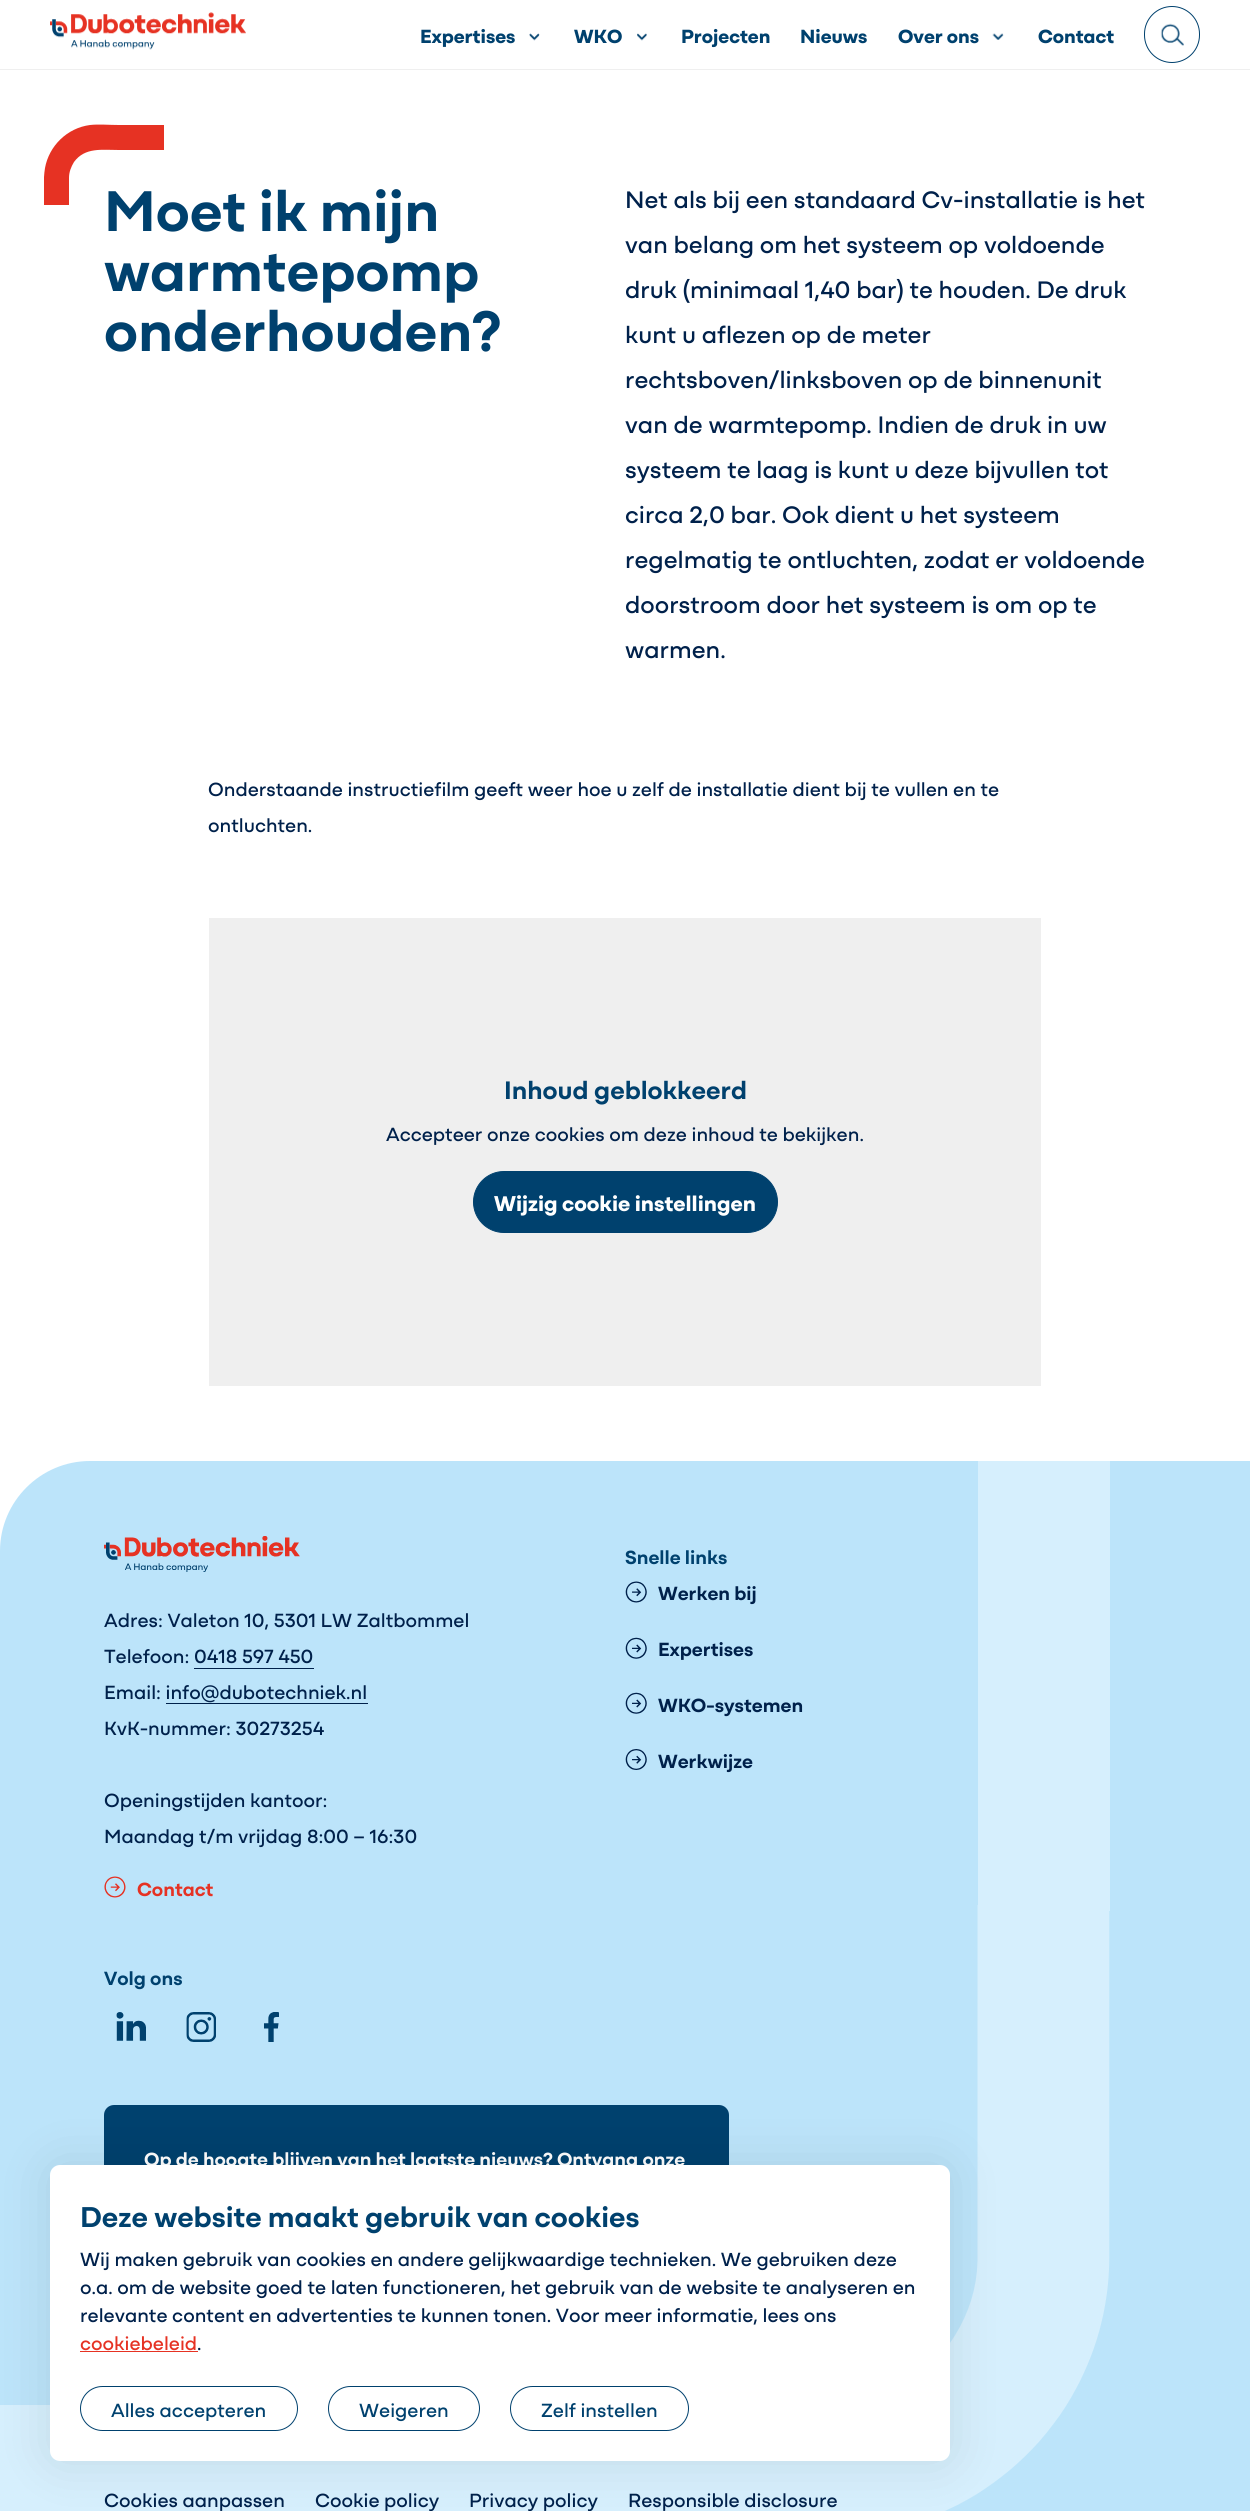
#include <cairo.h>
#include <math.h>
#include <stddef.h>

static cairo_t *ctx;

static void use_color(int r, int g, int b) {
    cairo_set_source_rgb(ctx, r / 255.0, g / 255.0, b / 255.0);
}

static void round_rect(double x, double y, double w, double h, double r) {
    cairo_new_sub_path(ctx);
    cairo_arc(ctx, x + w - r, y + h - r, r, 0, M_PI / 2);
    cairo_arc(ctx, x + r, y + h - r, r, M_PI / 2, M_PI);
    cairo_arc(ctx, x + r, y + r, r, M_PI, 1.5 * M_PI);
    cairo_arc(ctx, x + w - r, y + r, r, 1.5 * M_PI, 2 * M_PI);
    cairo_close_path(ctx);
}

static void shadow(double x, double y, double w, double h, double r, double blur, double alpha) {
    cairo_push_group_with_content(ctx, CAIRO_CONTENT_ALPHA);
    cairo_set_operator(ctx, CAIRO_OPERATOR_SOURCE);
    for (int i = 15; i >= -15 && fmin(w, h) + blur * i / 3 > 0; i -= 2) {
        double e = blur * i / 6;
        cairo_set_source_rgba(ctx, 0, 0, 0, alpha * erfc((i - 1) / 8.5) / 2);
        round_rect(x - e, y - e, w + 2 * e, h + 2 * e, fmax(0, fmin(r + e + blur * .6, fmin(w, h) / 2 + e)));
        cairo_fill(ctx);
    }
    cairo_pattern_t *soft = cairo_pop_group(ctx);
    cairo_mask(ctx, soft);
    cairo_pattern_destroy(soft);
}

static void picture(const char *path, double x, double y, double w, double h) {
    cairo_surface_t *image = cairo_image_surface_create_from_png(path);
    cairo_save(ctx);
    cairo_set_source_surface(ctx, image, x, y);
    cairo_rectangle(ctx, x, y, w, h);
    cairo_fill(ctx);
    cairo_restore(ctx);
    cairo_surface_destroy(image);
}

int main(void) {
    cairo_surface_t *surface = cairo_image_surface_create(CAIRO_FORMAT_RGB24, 1250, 2511);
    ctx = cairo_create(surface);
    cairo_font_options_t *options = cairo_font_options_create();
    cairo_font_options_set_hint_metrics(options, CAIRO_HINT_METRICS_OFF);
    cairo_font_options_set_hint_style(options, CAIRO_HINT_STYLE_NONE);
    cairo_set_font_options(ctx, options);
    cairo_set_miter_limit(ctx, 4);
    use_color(255, 255, 255);
    cairo_paint(ctx);
    use_color(239, 239, 239);
    cairo_rectangle(ctx, 0, 69, 1250, 1);
    cairo_fill(ctx);
    picture("img1.png", 50, 12, 196, 38);
    cairo_select_font_face(ctx, "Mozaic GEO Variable", CAIRO_FONT_SLANT_NORMAL, CAIRO_FONT_WEIGHT_BOLD);
    cairo_set_font_size(ctx, 20);
    use_color(0, 65, 110);
    cairo_move_to(ctx, 420, 43);
    cairo_show_text(ctx, "Expertises");
    picture("img2.png", 529, 33, 11, 8);
    cairo_move_to(ctx, 574, 43);
    cairo_show_text(ctx, "WKO");
    picture("img3.png", 637, 33, 10, 8);
    cairo_move_to(ctx, 681, 43);
    cairo_show_text(ctx, "Projecten");
    cairo_move_to(ctx, 800, 43);
    cairo_show_text(ctx, "Nieuws");
    cairo_move_to(ctx, 898, 43);
    cairo_show_text(ctx, "Over ons");
    picture("img4.png", 992, 33, 12, 7);
    cairo_move_to(ctx, 1038, 43);
    cairo_show_text(ctx, "Contact");
    round_rect(1144.5, 6.5, 55, 56, 27.5);
    cairo_set_line_width(ctx, 1);
    cairo_stroke(ctx);
    picture("img5.png", 1160, 23, 24, 23);
    cairo_select_font_face(ctx, "Mozaic GEO Variable SemiBold", CAIRO_FONT_SLANT_NORMAL, CAIRO_FONT_WEIGHT_NORMAL);
    cairo_set_font_size(ctx, 60);
    cairo_move_to(ctx, 104, 231);
    cairo_show_text(ctx, "Moet ik mijn");
    cairo_save(ctx);
    cairo_rectangle(ctx, 44, 75, 120, 180);
    cairo_clip(ctx);
    use_color(230, 50, 35);
    cairo_new_path(ctx);
    cairo_move_to(ctx, 44, 205);
    cairo_curve_to(ctx, 44, 193, 43, 180, 45, 168);
    cairo_curve_to(ctx, 49, 146, 67, 128, 90, 125);
    cairo_curve_to(ctx, 99, 124, 109, 125, 119, 125);
    cairo_line_to(ctx, 164, 125);
    cairo_line_to(ctx, 164, 150);
    cairo_line_to(ctx, 119, 150);
    cairo_curve_to(ctx, 102, 150, 85, 147, 74, 162);
    cairo_curve_to(ctx, 71, 167, 69, 172, 69, 178);
    cairo_line_to(ctx, 69, 205);
    cairo_close_path(ctx);
    cairo_fill(ctx);
    cairo_restore(ctx);
    cairo_move_to(ctx, 104, 291);
    cairo_show_text(ctx, "warmtepomp");
    cairo_move_to(ctx, 104, 351);
    cairo_show_text(ctx, "onderhouden?");
    cairo_select_font_face(ctx, "Mozaic GEO Variable", CAIRO_FONT_SLANT_NORMAL, CAIRO_FONT_WEIGHT_NORMAL);
    cairo_set_font_size(ctx, 25);
    use_color(0, 33, 75);
    cairo_move_to(ctx, 625, 208);
    cairo_show_text(ctx, "Net als bij een standaard Cv-installatie is het");
    cairo_move_to(ctx, 625, 253);
    cairo_show_text(ctx, "van belang om het systeem op voldoende");
    cairo_move_to(ctx, 625, 298);
    cairo_show_text(ctx, "druk (minimaal 1,40 bar) te houden. De druk");
    cairo_move_to(ctx, 625, 343);
    cairo_show_text(ctx, "kunt u aflezen op de meter");
    cairo_move_to(ctx, 625, 388);
    cairo_show_text(ctx, "rechtsboven/linksboven op de binnenunit");
    cairo_move_to(ctx, 625, 433);
    cairo_show_text(ctx, "van de warmtepomp. Indien de druk in uw");
    cairo_move_to(ctx, 625, 478);
    cairo_show_text(ctx, "systeem te laag is kunt u deze bijvullen tot");
    cairo_move_to(ctx, 625, 523);
    cairo_show_text(ctx, "circa 2,0 bar. Ook dient u het systeem");
    cairo_move_to(ctx, 625, 568);
    cairo_show_text(ctx, "regelmatig te ontluchten, zodat er voldoende");
    cairo_move_to(ctx, 625, 613);
    cairo_show_text(ctx, "doorstroom door het systeem is om op te");
    cairo_move_to(ctx, 625, 658);
    cairo_show_text(ctx, "warmen.");
    cairo_set_font_size(ctx, 20);
    cairo_move_to(ctx, 208, 796);
    cairo_show_text(ctx, "Onderstaande instructiefilm geeft weer hoe u zelf de installatie dient bij te vullen en te");
    cairo_move_to(ctx, 208, 832);
    cairo_show_text(ctx, "ontluchten.");
    use_color(239, 239, 239);
    cairo_rectangle(ctx, 209, 918, 832, 468);
    cairo_fill(ctx);
    cairo_select_font_face(ctx, "Mozaic GEO Variable SemiBold", CAIRO_FONT_SLANT_NORMAL, CAIRO_FONT_WEIGHT_NORMAL);
    cairo_set_font_size(ctx, 26.5);
    use_color(0, 65, 110);
    cairo_move_to(ctx, 504, 1099);
    cairo_show_text(ctx, "Inhoud geblokkeerd");
    cairo_select_font_face(ctx, "Mozaic GEO Variable", CAIRO_FONT_SLANT_NORMAL, CAIRO_FONT_WEIGHT_NORMAL);
    cairo_set_font_size(ctx, 20);
    use_color(0, 33, 75);
    cairo_move_to(ctx, 386, 1141);
    cairo_show_text(ctx, "Accepteer onze cookies om deze inhoud te bekijken.");
    use_color(0, 65, 110);
    round_rect(473.5, 1171.5, 304, 61, 30.5);
    cairo_fill_preserve(ctx);
    cairo_stroke(ctx);
    cairo_select_font_face(ctx, "Mozaic GEO Variable", CAIRO_FONT_SLANT_NORMAL, CAIRO_FONT_WEIGHT_BOLD);
    cairo_set_font_size(ctx, 22.5);
    use_color(255, 255, 255);
    cairo_move_to(ctx, 494, 1211);
    cairo_show_text(ctx, "Wijzig cookie instellingen");
    use_color(188, 228, 250);
    cairo_new_path(ctx);
    cairo_move_to(ctx, 90, 1461);
    cairo_line_to(ctx, 1250, 1461);
    cairo_line_to(ctx, 1250, 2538);
    cairo_line_to(ctx, 0, 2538);
    cairo_line_to(ctx, 0, 1551);
    cairo_curve_to(ctx, 0, 1501.5, 40.5, 1461, 90, 1461);
    cairo_close_path(ctx);
    cairo_fill(ctx);
    picture("img6.png", 104, 1536, 196, 36);
    cairo_select_font_face(ctx, "Mozaic GEO Variable", CAIRO_FONT_SLANT_NORMAL, CAIRO_FONT_WEIGHT_NORMAL);
    cairo_set_font_size(ctx, 20);
    use_color(0, 33, 75);
    cairo_move_to(ctx, 104, 1627);
    cairo_show_text(ctx, "Adres: Valeton 10, 5301 LW Zaltbommel");
    cairo_move_to(ctx, 104, 1663);
    cairo_show_text(ctx, "Telefoon: 0418 597 450");
    cairo_rectangle(ctx, 194, 1668, 120, 1);
    cairo_fill(ctx);
    cairo_move_to(ctx, 104, 1699);
    cairo_show_text(ctx, "Email: info@dubotechniek.nl");
    cairo_rectangle(ctx, 166, 1703, 202, 1);
    cairo_fill(ctx);
    cairo_move_to(ctx, 104, 1735);
    cairo_show_text(ctx, "KvK-nummer: 30273254");
    cairo_move_to(ctx, 104, 1807);
    cairo_show_text(ctx, "Openingstijden kantoor:");
    cairo_move_to(ctx, 104, 1843);
    cairo_show_text(ctx, "Maandag t/m vrijdag 8:00 – 16:30");
    picture("img7.png", 104, 1876, 22, 22);
    cairo_select_font_face(ctx, "Mozaic GEO Variable SemiBold", CAIRO_FONT_SLANT_NORMAL, CAIRO_FONT_WEIGHT_NORMAL);
    use_color(230, 50, 35);
    cairo_move_to(ctx, 137, 1896);
    cairo_show_text(ctx, "Contact");
    use_color(0, 65, 110);
    cairo_move_to(ctx, 625, 1564);
    cairo_show_text(ctx, "Snelle links");
    picture("img8.png", 625, 1581, 22, 22);
    use_color(0, 33, 75);
    cairo_move_to(ctx, 658, 1600);
    cairo_show_text(ctx, "Werken bij");
    picture("img9.png", 625, 1637, 22, 22);
    cairo_move_to(ctx, 658, 1656);
    cairo_show_text(ctx, "Expertises");
    picture("img9.png", 625, 1692, 22, 22);
    cairo_move_to(ctx, 658, 1712);
    cairo_show_text(ctx, "WKO-systemen");
    picture("img10.png", 625, 1749, 22, 21);
    cairo_move_to(ctx, 658, 1768);
    cairo_show_text(ctx, "Werkwijze");
    use_color(214, 239, 253);
    cairo_rectangle(ctx, 978, 1461, 132, 450);
    cairo_fill(ctx);
    use_color(0, 65, 110);
    cairo_move_to(ctx, 104, 1985);
    cairo_show_text(ctx, "Volg ons");
    picture("img11.png", 116, 2012, 30, 29);
    picture("img12.png", 186, 2012, 30, 30);
    picture("img13.png", 264, 2012, 15, 30);
    round_rect(104, 2105, 625, 255, 10);
    cairo_fill(ctx);
    use_color(255, 255, 255);
    cairo_move_to(ctx, 144, 2166);
    cairo_show_text(ctx, "Op de hoogte blijven van het laatste nieuws? Ontvang onze");
    picture("img14.png", 850, 1905, 260, 606);
    use_color(214, 239, 253);
    cairo_rectangle(ctx, 0, 2405, 850, 106);
    cairo_fill(ctx);
    cairo_select_font_face(ctx, "Mozaic GEO Variable", CAIRO_FONT_SLANT_NORMAL, CAIRO_FONT_WEIGHT_NORMAL);
    use_color(0, 33, 75);
    cairo_move_to(ctx, 104, 2507);
    cairo_show_text(ctx, "Cookies aanpassen");
    cairo_move_to(ctx, 315, 2507);
    cairo_show_text(ctx, "Cookie policy");
    cairo_move_to(ctx, 469, 2507);
    cairo_show_text(ctx, "Privacy policy");
    cairo_move_to(ctx, 628, 2507);
    cairo_show_text(ctx, "Responsible disclosure");
    use_color(0, 0, 0);
    shadow(50, 2165, 900, 296, 10, 25, 0.1);
    use_color(255, 255, 255);
    round_rect(50, 2165, 900, 296, 10);
    cairo_fill(ctx);
    cairo_select_font_face(ctx, "Mozaic GEO Variable SemiBold", CAIRO_FONT_SLANT_NORMAL, CAIRO_FONT_WEIGHT_NORMAL);
    cairo_set_font_size(ctx, 30);
    use_color(0, 65, 110);
    cairo_move_to(ctx, 80, 2227);
    cairo_show_text(ctx, "Deze website maakt gebruik van cookies");
    cairo_select_font_face(ctx, "Mozaic GEO Variable", CAIRO_FONT_SLANT_NORMAL, CAIRO_FONT_WEIGHT_NORMAL);
    cairo_set_font_size(ctx, 20);
    use_color(0, 33, 75);
    cairo_move_to(ctx, 80, 2266);
    cairo_show_text(ctx, "Wij maken gebruik van cookies en andere gelijkwaardige technieken. We gebruiken deze");
    cairo_move_to(ctx, 80, 2294);
    cairo_show_text(ctx, "o.a. om de website goed te laten functioneren, het gebruik van de website te analyseren en");
    cairo_move_to(ctx, 80, 2322);
    cairo_show_text(ctx, "relevante content en advertenties te kunnen tonen. Voor meer informatie, lees ons");
    use_color(230, 50, 35);
    cairo_move_to(ctx, 80, 2350);
    cairo_show_text(ctx, "cookiebeleid");
    cairo_rectangle(ctx, 80, 2351, 118, 1);
    cairo_fill(ctx);
    use_color(0, 33, 75);
    cairo_move_to(ctx, 197, 2350);
    cairo_show_text(ctx, ".");
    round_rect(80.5, 2386.5, 217, 44, 22);
    use_color(0, 65, 110);
    cairo_stroke(ctx);
    cairo_move_to(ctx, 111, 2417);
    cairo_show_text(ctx, "Alles accepteren");
    round_rect(328.5, 2386.5, 151, 44, 22);
    cairo_stroke(ctx);
    cairo_move_to(ctx, 359, 2417);
    cairo_show_text(ctx, "Weigeren");
    round_rect(510.5, 2386.5, 178, 44, 22);
    cairo_stroke(ctx);
    cairo_move_to(ctx, 541, 2417);
    cairo_show_text(ctx, "Zelf instellen");
    cairo_surface_write_to_png(surface, "result.png");
    cairo_font_options_destroy(options);
    cairo_destroy(ctx);
    cairo_surface_destroy(surface);
    return 0;
}
